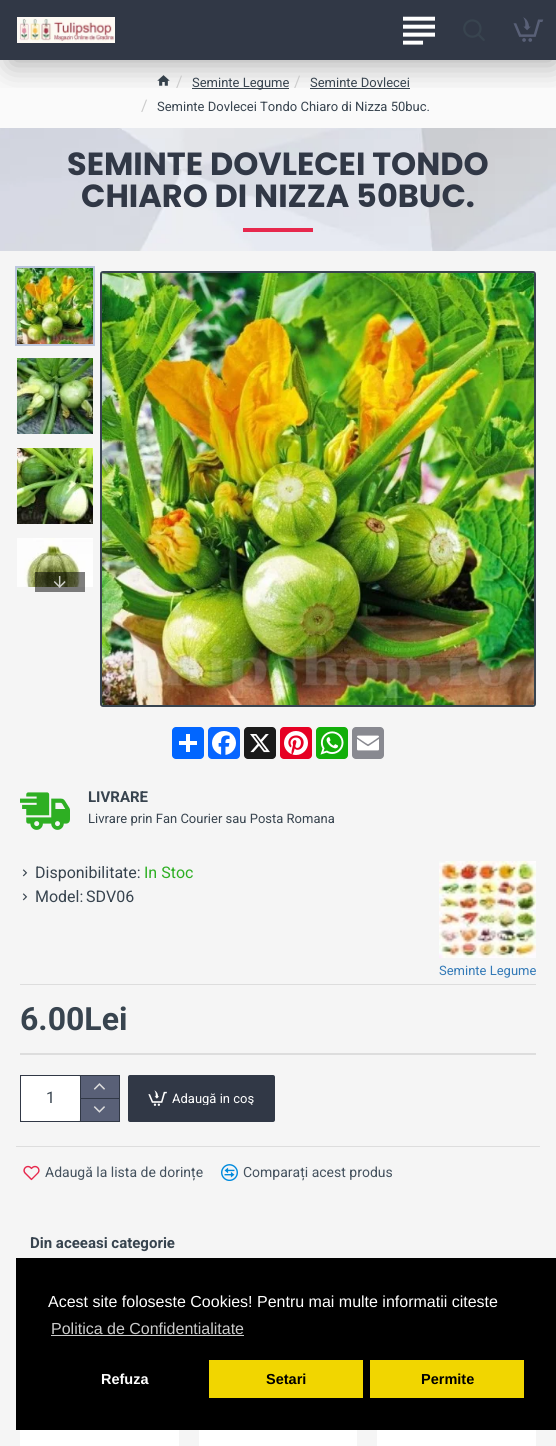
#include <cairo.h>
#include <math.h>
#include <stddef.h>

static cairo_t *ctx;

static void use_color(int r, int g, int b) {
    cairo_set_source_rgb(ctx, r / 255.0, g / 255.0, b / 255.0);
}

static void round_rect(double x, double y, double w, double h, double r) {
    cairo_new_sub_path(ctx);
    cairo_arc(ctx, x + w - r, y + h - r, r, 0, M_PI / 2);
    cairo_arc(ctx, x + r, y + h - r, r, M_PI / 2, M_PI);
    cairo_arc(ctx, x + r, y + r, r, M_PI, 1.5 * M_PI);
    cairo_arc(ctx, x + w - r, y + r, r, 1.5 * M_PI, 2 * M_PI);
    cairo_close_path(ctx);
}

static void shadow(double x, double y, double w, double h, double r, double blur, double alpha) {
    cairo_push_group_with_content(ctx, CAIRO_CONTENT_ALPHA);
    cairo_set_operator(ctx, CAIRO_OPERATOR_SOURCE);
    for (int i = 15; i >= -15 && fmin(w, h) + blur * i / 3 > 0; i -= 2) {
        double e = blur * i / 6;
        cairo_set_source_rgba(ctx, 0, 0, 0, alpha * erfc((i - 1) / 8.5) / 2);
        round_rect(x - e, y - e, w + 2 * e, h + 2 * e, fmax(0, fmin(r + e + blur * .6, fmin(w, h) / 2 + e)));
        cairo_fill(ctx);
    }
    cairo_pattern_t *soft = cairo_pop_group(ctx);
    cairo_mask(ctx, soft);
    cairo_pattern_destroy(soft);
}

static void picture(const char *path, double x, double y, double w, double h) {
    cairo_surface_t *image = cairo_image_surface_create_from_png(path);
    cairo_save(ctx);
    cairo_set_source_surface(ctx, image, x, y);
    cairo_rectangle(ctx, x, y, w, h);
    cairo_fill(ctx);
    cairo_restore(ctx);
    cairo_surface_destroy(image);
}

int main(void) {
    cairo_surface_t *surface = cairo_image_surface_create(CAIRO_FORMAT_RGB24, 556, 1446);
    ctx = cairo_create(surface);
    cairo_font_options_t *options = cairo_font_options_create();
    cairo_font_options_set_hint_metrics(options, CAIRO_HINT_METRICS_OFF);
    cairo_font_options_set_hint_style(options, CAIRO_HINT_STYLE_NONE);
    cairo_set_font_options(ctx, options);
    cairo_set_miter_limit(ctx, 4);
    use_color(250, 250, 250);
    cairo_paint(ctx);
    use_color(49, 56, 70);
    cairo_rectangle(ctx, 0, 0, 556, 60);
    cairo_fill(ctx);
    picture("img5.png", 157, 75, 13, 11);
    use_color(56, 68, 79);
    cairo_rectangle(ctx, 192, 88, 97, 1);
    cairo_fill(ctx);
    cairo_rectangle(ctx, 310, 88, 100, 1);
    cairo_fill(ctx);
    cairo_save(ctx);
    cairo_rectangle(ctx, 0, 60, 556, 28);
    cairo_clip(ctx);
    use_color(0, 0, 0);
    shadow(10, 15, 546, 50, 0, 15, 0.3);
    cairo_restore(ctx);
    picture("img1.png", 17, 17, 98, 26);
    picture("img2.png", 403, 16, 32, 29);
    picture("img3.png", 463, 19, 22, 22);
    picture("img4.png", 513, 17, 31, 25);
    cairo_select_font_face(ctx, "Roboto", CAIRO_FONT_SLANT_NORMAL, CAIRO_FONT_WEIGHT_NORMAL);
    cairo_set_font_size(ctx, 16);
    use_color(204, 204, 204);
    cairo_move_to(ctx, 176, 87);
    cairo_show_text(ctx, "/");
    cairo_set_font_size(ctx, 13);
    use_color(56, 68, 79);
    cairo_move_to(ctx, 192, 87);
    cairo_show_text(ctx, "Seminte Legume");
    cairo_set_font_size(ctx, 16);
    use_color(204, 204, 204);
    cairo_move_to(ctx, 294, 87);
    cairo_show_text(ctx, "/");
    cairo_set_font_size(ctx, 13);
    use_color(56, 68, 79);
    cairo_move_to(ctx, 310, 87);
    cairo_show_text(ctx, "Seminte Dovlecei");
    cairo_set_font_size(ctx, 16);
    use_color(204, 204, 204);
    cairo_move_to(ctx, 141, 111);
    cairo_show_text(ctx, "/");
    cairo_set_font_size(ctx, 13);
    use_color(56, 68, 79);
    cairo_move_to(ctx, 157, 111);
    cairo_show_text(ctx, "Seminte Dovlecei Tondo Chiaro di Nizza 50buc.");
    picture("img6.png", 0, 128, 556, 123);
    cairo_select_font_face(ctx, "Poppins", CAIRO_FONT_SLANT_NORMAL, CAIRO_FONT_WEIGHT_BOLD);
    cairo_set_font_size(ctx, 32);
    use_color(49, 56, 70);
    cairo_move_to(ctx, 67, 175);
    cairo_show_text(ctx, "SEMINTE DOVLECEI TONDO");
    cairo_move_to(ctx, 81, 207);
    cairo_show_text(ctx, "CHIARO DI NIZZA 50BUC.");
    use_color(231, 40, 77);
    cairo_rectangle(ctx, 243, 228, 70, 4);
    cairo_fill(ctx);
    use_color(245, 245, 245);
    cairo_rectangle(ctx, 0, 251, 556, 1195);
    cairo_fill(ctx);
    cairo_rectangle(ctx, 16, 267, 78, 78);
    use_color(187, 198, 221);
    cairo_stroke(ctx);
    picture("img7.png", 17, 268, 76, 76);
    picture("img8.png", 17, 358, 76, 76);
    picture("img9.png", 17, 448, 76, 76);
    picture("img10.png", 17, 538, 76, 49);
    cairo_set_source_rgba(ctx, 0, 0, 0, 0.5);
    cairo_rectangle(ctx, 35, 572, 50, 20);
    cairo_fill(ctx);
    picture("img11.png", 53, 576, 13, 12);
    round_rect(101, 272, 434, 434, 2);
    use_color(56, 68, 79);
    cairo_stroke(ctx);
    picture("img12.png", 102, 273, 432, 432);
    use_color(1, 102, 255);
    round_rect(172, 727, 32, 32, 4);
    cairo_fill(ctx);
    use_color(255, 255, 255);
    cairo_rectangle(ctx, 186, 734, 4, 18);
    cairo_fill(ctx);
    cairo_rectangle(ctx, 179, 741, 18, 4);
    cairo_fill(ctx);
    use_color(8, 102, 255);
    round_rect(208, 727, 32, 32, 4);
    cairo_fill(ctx);
    picture("img13.png", 212, 731, 24, 24);
    use_color(26, 26, 26);
    round_rect(244, 727, 32, 32, 4);
    cairo_fill(ctx);
    picture("img14.png", 250, 734, 20, 19);
    use_color(230, 0, 35);
    round_rect(280, 727, 32, 32, 4);
    cairo_fill(ctx);
    picture("img15.png", 284, 731, 24, 24);
    use_color(18, 175, 10);
    round_rect(316, 727, 32, 32, 4);
    cairo_fill(ctx);
    picture("img16.png", 320, 731, 24, 24);
    use_color(136, 137, 144);
    round_rect(352, 727, 32, 32, 4);
    cairo_fill(ctx);
    picture("img17.png", 357, 735, 22, 16);
    picture("img18.png", 20, 792, 50, 38);
    cairo_select_font_face(ctx, "Roboto", CAIRO_FONT_SLANT_NORMAL, CAIRO_FONT_WEIGHT_BOLD);
    cairo_set_font_size(ctx, 15);
    use_color(56, 68, 79);
    cairo_move_to(ctx, 88, 802);
    cairo_show_text(ctx, "LIVRARE");
    cairo_select_font_face(ctx, "Roboto", CAIRO_FONT_SLANT_NORMAL, CAIRO_FONT_WEIGHT_NORMAL);
    cairo_set_font_size(ctx, 13);
    cairo_move_to(ctx, 88, 823);
    cairo_show_text(ctx, "Livrare prin Fan Courier sau Posta Romana");
    picture("img19.png", 22, 869, 6, 8);
    cairo_set_font_size(ctx, 16);
    cairo_move_to(ctx, 35, 878);
    cairo_show_text(ctx, "Disponibilitate:");
    use_color(46, 175, 35);
    cairo_move_to(ctx, 144, 878);
    cairo_show_text(ctx, "In Stoc");
    picture("img19.png", 22, 893, 6, 8);
    use_color(56, 68, 79);
    cairo_move_to(ctx, 35, 902);
    cairo_show_text(ctx, "Model:");
    cairo_move_to(ctx, 86, 902);
    cairo_show_text(ctx, "SDV06");
    picture("img20.png", 439, 861, 97, 97);
    cairo_set_font_size(ctx, 13);
    use_color(51, 122, 183);
    cairo_move_to(ctx, 439, 975);
    cairo_show_text(ctx, "Seminte Legume");
    use_color(221, 221, 221);
    cairo_rectangle(ctx, 20, 984, 516, 1);
    cairo_fill(ctx);
    cairo_select_font_face(ctx, "Roboto", CAIRO_FONT_SLANT_NORMAL, CAIRO_FONT_WEIGHT_BOLD);
    cairo_set_font_size(ctx, 32);
    use_color(56, 68, 79);
    cairo_move_to(ctx, 20, 1030);
    cairo_show_text(ctx, "6.00Lei");
    use_color(221, 221, 221);
    cairo_rectangle(ctx, 20, 1053, 516, 2);
    cairo_fill(ctx);
    cairo_rectangle(ctx, 20.5, 1075.5, 99, 46);
    use_color(49, 56, 70);
    cairo_set_line_width(ctx, 1);
    cairo_stroke(ctx);
    cairo_save(ctx);
    cairo_rectangle(ctx, 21, 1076, 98, 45);
    cairo_clip(ctx);
    use_color(0, 0, 0);
    shadow(23, 1080, 55, 41, 0, 7.5, 0.15);
    cairo_restore(ctx);
    use_color(255, 255, 255);
    round_rect(21, 1076, 59, 45, 2);
    cairo_fill(ctx);
    cairo_select_font_face(ctx, "Roboto", CAIRO_FONT_SLANT_NORMAL, CAIRO_FONT_WEIGHT_NORMAL);
    cairo_set_font_size(ctx, 16);
    use_color(56, 68, 79);
    cairo_move_to(ctx, 46, 1103);
    cairo_show_text(ctx, "1");
    use_color(89, 96, 119);
    cairo_rectangle(ctx, 81, 1076, 38, 22);
    cairo_fill(ctx);
    use_color(49, 56, 70);
    cairo_rectangle(ctx, 80, 1076, 1, 22);
    cairo_fill(ctx);
    picture("img21.png", 93, 1083, 12, 7);
    use_color(89, 96, 119);
    cairo_rectangle(ctx, 81, 1099, 38, 22);
    cairo_fill(ctx);
    use_color(49, 56, 70);
    cairo_rectangle(ctx, 80, 1098, 39, 1);
    cairo_fill(ctx);
    cairo_rectangle(ctx, 80, 1098, 1, 23);
    cairo_fill(ctx);
    picture("img22.png", 93, 1106, 12, 7);
    round_rect(128, 1075, 147, 47, 2);
    cairo_fill(ctx);
    picture("img23.png", 148, 1090, 19, 16);
    cairo_save(ctx);
    cairo_rectangle(ctx, 172, 1092, 83, 13);
    cairo_clip(ctx);
    cairo_set_font_size(ctx, 13);
    use_color(255, 255, 255);
    cairo_move_to(ctx, 172, 1103);
    cairo_show_text(ctx, "Adaugă in coş");
    cairo_restore(ctx);
    use_color(221, 221, 221);
    cairo_rectangle(ctx, 16, 1146, 524, 1);
    cairo_fill(ctx);
    picture("img24.png", 23, 1165, 17, 16);
    cairo_set_font_size(ctx, 14);
    use_color(69, 82, 94);
    cairo_move_to(ctx, 45, 1177);
    cairo_show_text(ctx, "Adaugă la lista de dorințe");
    picture("img25.png", 221, 1164, 17, 17);
    cairo_move_to(ctx, 243, 1177);
    cairo_show_text(ctx, "Comparați acest produs");
    cairo_select_font_face(ctx, "Roboto", CAIRO_FONT_SLANT_NORMAL, CAIRO_FONT_WEIGHT_BOLD);
    cairo_set_font_size(ctx, 15);
    use_color(56, 68, 79);
    cairo_move_to(ctx, 30, 1248);
    cairo_show_text(ctx, "Din aceeasi categorie");
    use_color(255, 255, 255);
    cairo_rectangle(ctx, 20, 1430, 159, 16);
    cairo_fill(ctx);
    cairo_rectangle(ctx, 199, 1430, 158, 16);
    cairo_fill(ctx);
    cairo_rectangle(ctx, 377, 1430, 159, 16);
    cairo_fill(ctx);
    use_color(0, 0, 0);
    cairo_rectangle(ctx, 16, 1258, 540, 172);
    cairo_fill(ctx);
    cairo_select_font_face(ctx, "Liberation Sans", CAIRO_FONT_SLANT_NORMAL, CAIRO_FONT_WEIGHT_NORMAL);
    cairo_set_font_size(ctx, 16);
    use_color(255, 255, 255);
    cairo_move_to(ctx, 48, 1307);
    cairo_show_text(ctx, "Acest site foloseste Cookies! Pentru mai multe informatii citeste");
    use_color(204, 204, 204);
    cairo_move_to(ctx, 51, 1334);
    cairo_show_text(ctx, "Politica de Confidentialitate");
    cairo_rectangle(ctx, 51, 1335, 193, 1);
    cairo_fill(ctx);
    cairo_select_font_face(ctx, "Liberation Sans", CAIRO_FONT_SLANT_NORMAL, CAIRO_FONT_WEIGHT_BOLD);
    cairo_set_font_size(ctx, 14.5);
    use_color(255, 255, 255);
    cairo_move_to(ctx, 101, 1384);
    cairo_show_text(ctx, "Refuza");
    use_color(241, 214, 0);
    cairo_rectangle(ctx, 209, 1360, 154, 38);
    cairo_fill(ctx);
    use_color(0, 0, 0);
    cairo_move_to(ctx, 266, 1384);
    cairo_show_text(ctx, "Setari");
    use_color(241, 214, 0);
    cairo_rectangle(ctx, 370, 1360, 154, 38);
    cairo_fill(ctx);
    use_color(0, 0, 0);
    cairo_move_to(ctx, 421, 1384);
    cairo_show_text(ctx, "Permite");
    cairo_surface_write_to_png(surface, "result.png");
    cairo_font_options_destroy(options);
    cairo_destroy(ctx);
    cairo_surface_destroy(surface);
    return 0;
}
